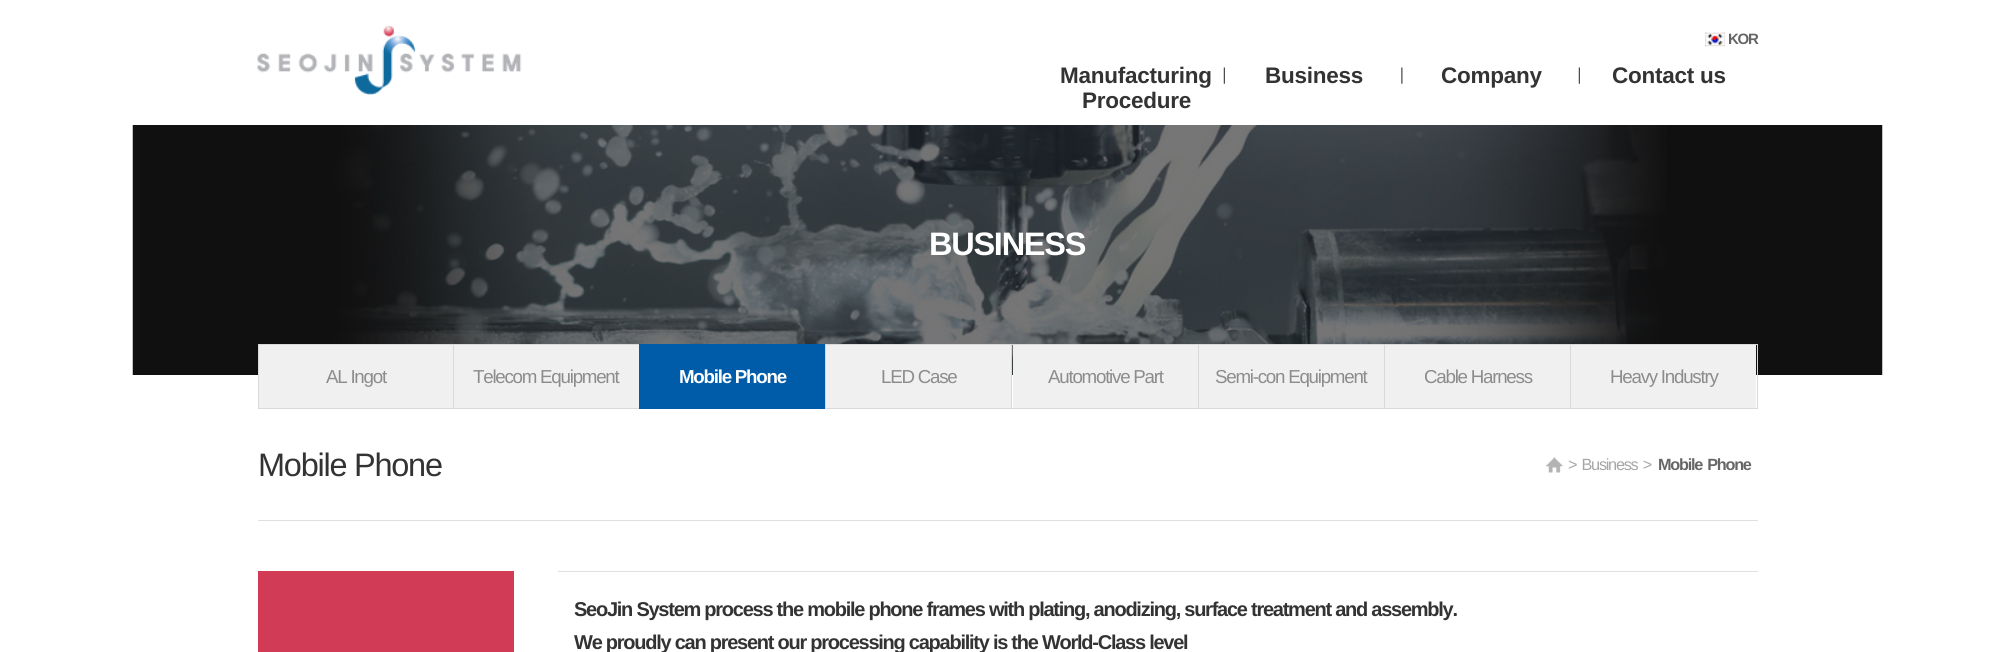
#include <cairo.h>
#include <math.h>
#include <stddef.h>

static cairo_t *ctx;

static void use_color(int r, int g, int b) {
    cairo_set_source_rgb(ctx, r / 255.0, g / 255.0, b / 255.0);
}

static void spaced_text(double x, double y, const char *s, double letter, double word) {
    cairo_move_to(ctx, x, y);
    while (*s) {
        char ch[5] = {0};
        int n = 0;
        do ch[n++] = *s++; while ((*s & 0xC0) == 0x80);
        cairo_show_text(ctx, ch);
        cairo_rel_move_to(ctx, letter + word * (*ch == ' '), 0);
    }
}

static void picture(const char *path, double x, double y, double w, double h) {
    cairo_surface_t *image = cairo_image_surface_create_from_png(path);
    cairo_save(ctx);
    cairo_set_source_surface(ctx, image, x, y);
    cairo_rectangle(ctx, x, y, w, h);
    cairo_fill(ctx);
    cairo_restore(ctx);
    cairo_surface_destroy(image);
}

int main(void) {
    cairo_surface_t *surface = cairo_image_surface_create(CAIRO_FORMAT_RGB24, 2014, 652);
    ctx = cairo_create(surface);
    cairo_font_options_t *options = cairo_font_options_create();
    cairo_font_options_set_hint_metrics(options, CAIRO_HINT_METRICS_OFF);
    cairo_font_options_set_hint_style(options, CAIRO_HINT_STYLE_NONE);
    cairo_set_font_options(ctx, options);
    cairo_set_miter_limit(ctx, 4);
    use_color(255, 255, 255);
    cairo_paint(ctx);
    picture("img1.png", 257, 25, 265, 70);
    picture("img2.png", 1705, 32, 20, 15);
    cairo_select_font_face(ctx, "Liberation Sans", CAIRO_FONT_SLANT_NORMAL, CAIRO_FONT_WEIGHT_BOLD);
    cairo_set_font_size(ctx, 15);
    use_color(102, 102, 102);
    spaced_text(1728, 44, "KOR", -1.25, 0);
    picture("img3.png", 1223, 67, 2, 17);
    cairo_set_font_size(ctx, 22.5);
    use_color(51, 51, 51);
    spaced_text(1060, 83, "Manufacturing", -0.25, 0);
    spaced_text(1082, 108, "Procedure", -0.25, 0);
    picture("img4.png", 1401, 67, 2, 17);
    spaced_text(1265, 83, "Business", -0.25, 0);
    picture("img3.png", 1578, 67, 2, 17);
    spaced_text(1441, 83, "Company", -0.25, 0);
    spaced_text(1612, 83, "Contact us", -0.25, 0);
    picture("img5.png", 132, 125, 1751, 250);
    cairo_set_font_size(ctx, 32.5);
    use_color(255, 255, 255);
    spaced_text(929, 255, "BUSINESS", -1.25, 0);
    use_color(217, 217, 217);
    cairo_rectangle(ctx, 258, 344, 381, 1);
    cairo_fill(ctx);
    cairo_rectangle(ctx, 258, 408, 381, 1);
    cairo_fill(ctx);
    cairo_rectangle(ctx, 258, 344, 1, 65);
    cairo_fill(ctx);
    use_color(240, 240, 240);
    cairo_rectangle(ctx, 259, 345, 194, 63);
    cairo_fill(ctx);
    cairo_select_font_face(ctx, "Liberation Sans", CAIRO_FONT_SLANT_NORMAL, CAIRO_FONT_WEIGHT_NORMAL);
    cairo_set_font_size(ctx, 18.75);
    use_color(140, 140, 140);
    spaced_text(326, 383, "AL Ingot", -1.25, 0);
    use_color(217, 217, 217);
    cairo_rectangle(ctx, 453, 344, 1, 65);
    cairo_fill(ctx);
    use_color(240, 240, 240);
    cairo_rectangle(ctx, 454, 345, 185, 63);
    cairo_fill(ctx);
    use_color(140, 140, 140);
    spaced_text(473, 383, "Telecom Equipment", -1.25, 0);
    use_color(0, 92, 169);
    cairo_rectangle(ctx, 639, 344, 186, 1);
    cairo_fill(ctx);
    cairo_rectangle(ctx, 639, 408, 186, 1);
    cairo_fill(ctx);
    cairo_rectangle(ctx, 639, 344, 1, 65);
    cairo_fill(ctx);
    cairo_rectangle(ctx, 640, 345, 185, 63);
    cairo_fill(ctx);
    cairo_select_font_face(ctx, "Liberation Sans", CAIRO_FONT_SLANT_NORMAL, CAIRO_FONT_WEIGHT_BOLD);
    use_color(255, 255, 255);
    spaced_text(679, 383, "Mobile Phone", -1.25, 0);
    use_color(217, 217, 217);
    cairo_rectangle(ctx, 825, 344, 745, 1);
    cairo_fill(ctx);
    cairo_rectangle(ctx, 825, 408, 745, 1);
    cairo_fill(ctx);
    cairo_rectangle(ctx, 825, 344, 1, 65);
    cairo_fill(ctx);
    use_color(240, 240, 240);
    cairo_rectangle(ctx, 826, 345, 185, 63);
    cairo_fill(ctx);
    cairo_select_font_face(ctx, "Liberation Sans", CAIRO_FONT_SLANT_NORMAL, CAIRO_FONT_WEIGHT_NORMAL);
    use_color(140, 140, 140);
    spaced_text(881, 383, "LED Case", -1.25, 0);
    use_color(217, 217, 217);
    cairo_rectangle(ctx, 1011, 344, 1, 65);
    cairo_fill(ctx);
    use_color(240, 240, 240);
    cairo_rectangle(ctx, 1013, 345, 185, 63);
    cairo_fill(ctx);
    use_color(140, 140, 140);
    spaced_text(1048, 383, "Automotive Part", -1.25, 0);
    use_color(217, 217, 217);
    cairo_rectangle(ctx, 1198, 344, 1, 65);
    cairo_fill(ctx);
    use_color(240, 240, 240);
    cairo_rectangle(ctx, 1199, 345, 185, 63);
    cairo_fill(ctx);
    use_color(140, 140, 140);
    spaced_text(1215, 383, "Semi-con Equipment", -1.25, 0);
    use_color(217, 217, 217);
    cairo_rectangle(ctx, 1384, 344, 1, 65);
    cairo_fill(ctx);
    use_color(240, 240, 240);
    cairo_rectangle(ctx, 1385, 345, 185, 63);
    cairo_fill(ctx);
    use_color(140, 140, 140);
    spaced_text(1424, 383, "Cable Harness", -1.25, 0);
    cairo_rectangle(ctx, 1570.5, 344.5, 187, 64);
    use_color(217, 217, 217);
    cairo_set_line_width(ctx, 1);
    cairo_stroke(ctx);
    use_color(240, 240, 240);
    cairo_rectangle(ctx, 1571, 345, 185, 63);
    cairo_fill(ctx);
    use_color(140, 140, 140);
    spaced_text(1610, 383, "Heavy Industry", -1.25, 0);
    use_color(224, 224, 224);
    cairo_rectangle(ctx, 258, 520, 1500, 1);
    cairo_fill(ctx);
    cairo_set_font_size(ctx, 32.5);
    use_color(51, 51, 51);
    spaced_text(258, 476, "Mobile Phone", -1.25, 0);
    picture("img6.png", 1546, 457, 17, 16);
    cairo_set_font_size(ctx, 16.25);
    use_color(166, 166, 166);
    spaced_text(1568, 470, "> Business >", -1.25, 2);
    cairo_select_font_face(ctx, "Liberation Sans", CAIRO_FONT_SLANT_NORMAL, CAIRO_FONT_WEIGHT_BOLD);
    use_color(102, 102, 102);
    spaced_text(1658, 470, "Mobile Phone", -1.25, 2);
    use_color(209, 59, 86);
    cairo_rectangle(ctx, 258, 571, 256, 81);
    cairo_fill(ctx);
    use_color(224, 224, 224);
    cairo_rectangle(ctx, 558, 571, 1200, 1);
    cairo_fill(ctx);
    cairo_set_font_size(ctx, 20);
    use_color(51, 51, 51);
    spaced_text(574, 616, "SeoJin System process the mobile phone frames with plating, anodizing, surface treatment and assembly.", -1.25, 0);
    spaced_text(574, 649, "We proudly can present our processing capability is the World-Class level", -1.25, 0);
    cairo_surface_write_to_png(surface, "result.png");
    cairo_font_options_destroy(options);
    cairo_destroy(ctx);
    cairo_surface_destroy(surface);
    return 0;
}
